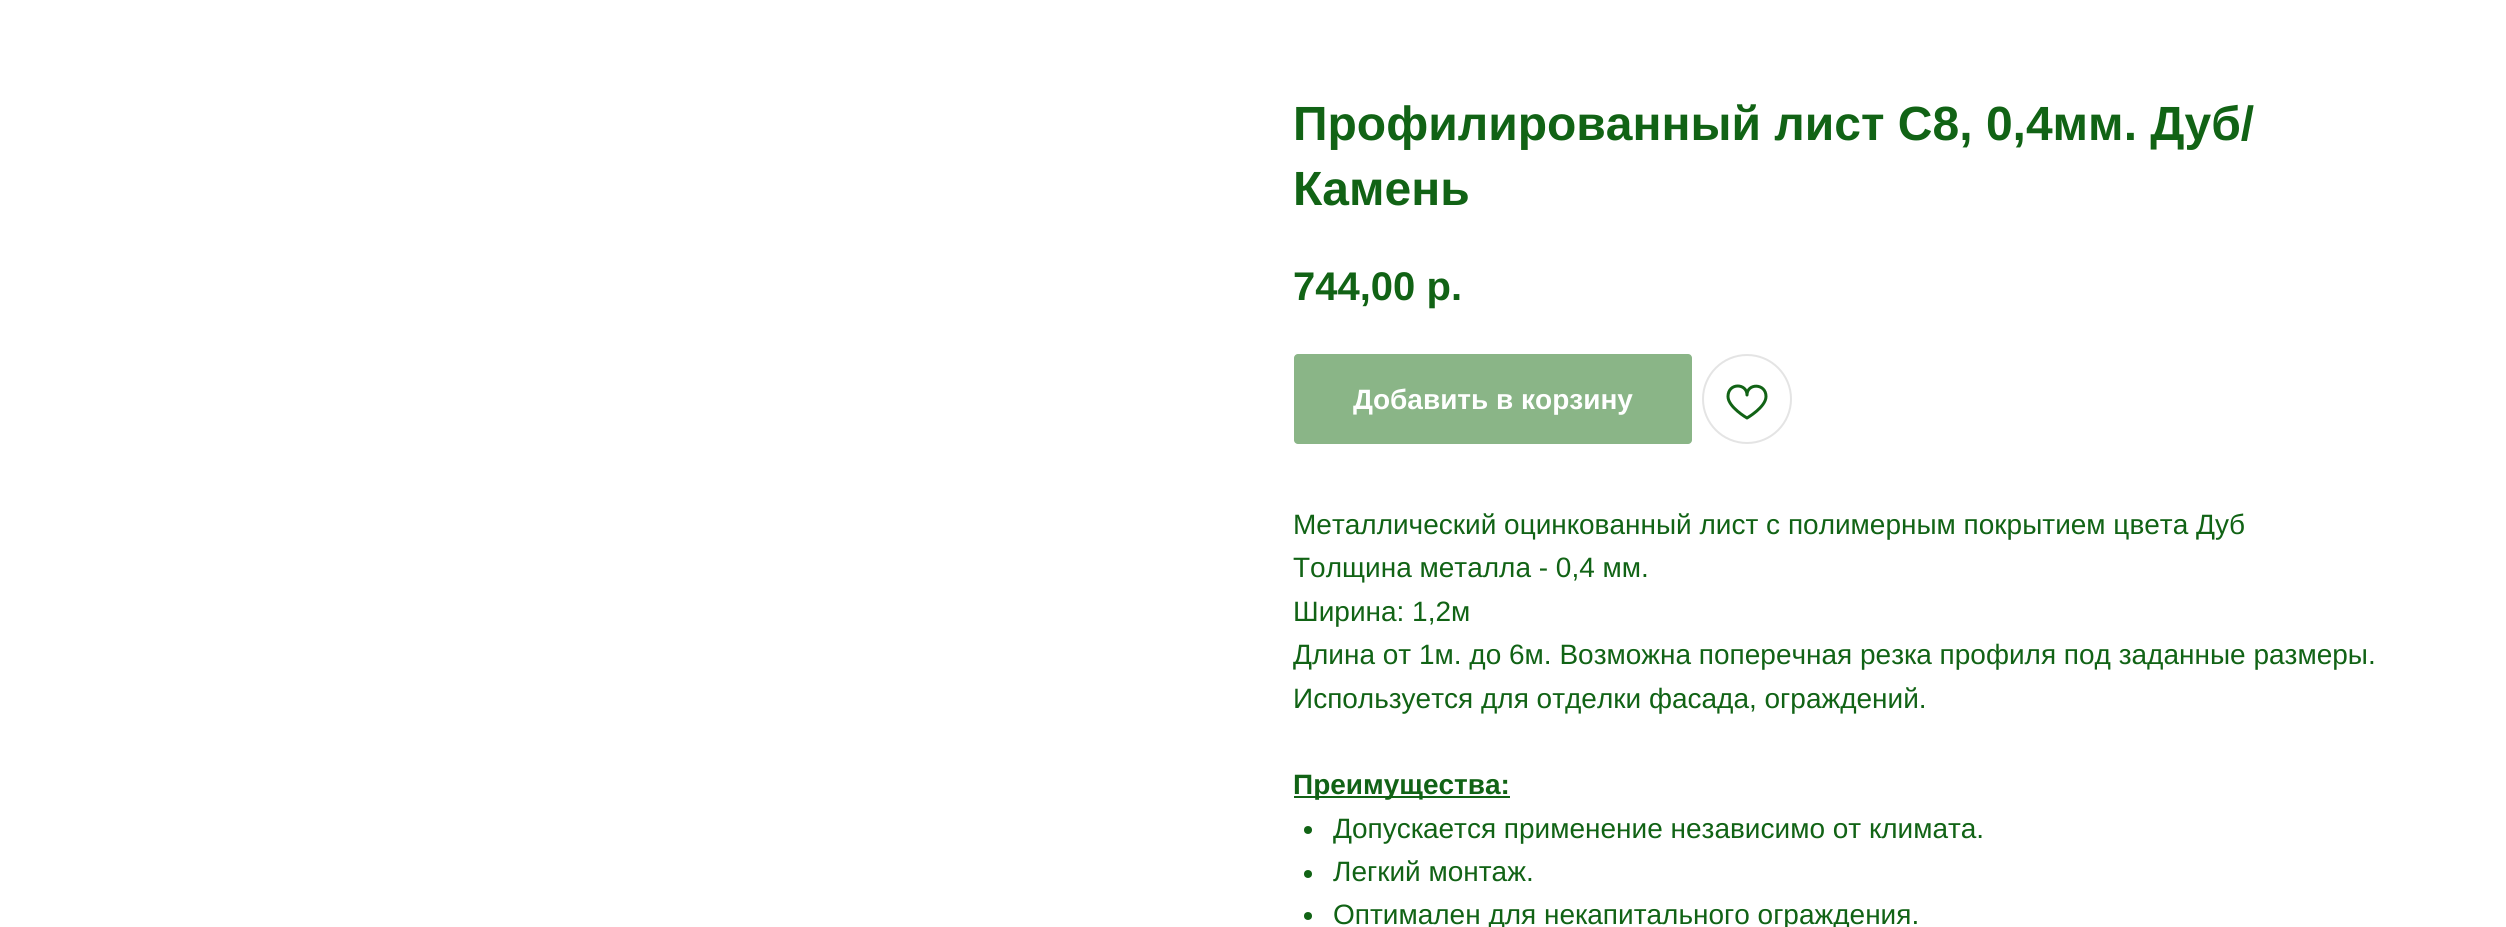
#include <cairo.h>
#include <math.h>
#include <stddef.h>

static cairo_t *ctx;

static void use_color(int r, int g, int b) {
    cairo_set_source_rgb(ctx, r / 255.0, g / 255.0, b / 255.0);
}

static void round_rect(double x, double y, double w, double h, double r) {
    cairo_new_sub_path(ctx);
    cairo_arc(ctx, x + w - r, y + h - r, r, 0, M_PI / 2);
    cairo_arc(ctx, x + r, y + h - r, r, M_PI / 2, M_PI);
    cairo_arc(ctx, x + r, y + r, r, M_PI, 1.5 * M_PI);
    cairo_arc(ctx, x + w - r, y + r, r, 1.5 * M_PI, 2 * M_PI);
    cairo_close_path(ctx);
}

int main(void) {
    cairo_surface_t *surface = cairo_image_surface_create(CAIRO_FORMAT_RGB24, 2506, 927);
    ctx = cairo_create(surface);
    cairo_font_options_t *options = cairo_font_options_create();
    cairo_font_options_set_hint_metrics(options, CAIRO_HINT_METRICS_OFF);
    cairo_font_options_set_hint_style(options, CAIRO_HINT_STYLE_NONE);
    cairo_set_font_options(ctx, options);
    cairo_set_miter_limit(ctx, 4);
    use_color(255, 255, 255);
    cairo_paint(ctx);
    cairo_select_font_face(ctx, "Liberation Sans", CAIRO_FONT_SLANT_NORMAL, CAIRO_FONT_WEIGHT_BOLD);
    cairo_set_font_size(ctx, 48);
    use_color(17, 99, 21);
    cairo_move_to(ctx, 1293, 140);
    cairo_show_text(ctx, "Профилированный лист С8, 0,4мм. Дуб/");
    cairo_move_to(ctx, 1293, 205);
    cairo_show_text(ctx, "Камень");
    cairo_set_font_size(ctx, 40);
    cairo_move_to(ctx, 1293, 300);
    cairo_show_text(ctx, "744,00 р.");
    use_color(138, 181, 135);
    round_rect(1294, 354, 398, 90, 4);
    cairo_fill(ctx);
    cairo_set_font_size(ctx, 28);
    use_color(255, 255, 255);
    cairo_move_to(ctx, 1353, 409);
    cairo_show_text(ctx, "Добавить в корзину");
    cairo_new_path(ctx);
    cairo_arc(ctx, 1747, 399, 44, 0, 2 * M_PI);
    use_color(228, 228, 228);
    cairo_stroke(ctx);
    cairo_new_path(ctx);
    cairo_move_to(ctx, 1766, 396.5);
    cairo_curve_to(ctx, 1766, 407, 1747, 418, 1747, 418);
    cairo_curve_to(ctx, 1747, 418, 1728, 407, 1728, 396.5);
    cairo_curve_to(ctx, 1728, 382.5, 1747, 383, 1747, 395);
    cairo_curve_to(ctx, 1747, 383, 1766, 383, 1766, 396.5);
    cairo_close_path(ctx);
    use_color(17, 99, 21);
    cairo_set_line_width(ctx, 3);
    cairo_set_line_join(ctx, CAIRO_LINE_JOIN_ROUND);
    cairo_stroke(ctx);
    cairo_select_font_face(ctx, "Liberation Sans", CAIRO_FONT_SLANT_NORMAL, CAIRO_FONT_WEIGHT_NORMAL);
    cairo_move_to(ctx, 1293, 534);
    cairo_show_text(ctx, "Металлический оцинкованный лист с полимерным покрытием цвета Дуб");
    cairo_move_to(ctx, 1293, 577);
    cairo_show_text(ctx, "Толщина металла - 0,4 мм.");
    cairo_move_to(ctx, 1293, 621);
    cairo_show_text(ctx, "Ширина: 1,2м");
    cairo_move_to(ctx, 1293, 664);
    cairo_show_text(ctx, "Длина от 1м. до 6м. Возможна поперечная резка профиля под заданные размеры.");
    cairo_move_to(ctx, 1293, 708);
    cairo_show_text(ctx, "Используется для отделки фасада, ограждений.");
    cairo_rectangle(ctx, 1294, 796, 216, 2);
    cairo_fill(ctx);
    cairo_select_font_face(ctx, "Liberation Sans", CAIRO_FONT_SLANT_NORMAL, CAIRO_FONT_WEIGHT_BOLD);
    cairo_move_to(ctx, 1293, 794);
    cairo_show_text(ctx, "Преимущества:");
    cairo_new_path(ctx);
    cairo_arc(ctx, 1308, 830, 4, 0, 2 * M_PI);
    cairo_fill(ctx);
    cairo_select_font_face(ctx, "Liberation Sans", CAIRO_FONT_SLANT_NORMAL, CAIRO_FONT_WEIGHT_NORMAL);
    cairo_move_to(ctx, 1333, 838);
    cairo_show_text(ctx, "Допускается применение независимо от климата.");
    cairo_new_path(ctx);
    cairo_arc(ctx, 1308, 874, 4, 0, 2 * M_PI);
    cairo_fill(ctx);
    cairo_move_to(ctx, 1333, 881);
    cairo_show_text(ctx, "Легкий монтаж.");
    cairo_new_path(ctx);
    cairo_arc(ctx, 1308, 916, 4, 0, 2 * M_PI);
    cairo_fill(ctx);
    cairo_move_to(ctx, 1333, 924);
    cairo_show_text(ctx, "Оптимален для некапитального ограждения.");
    cairo_surface_write_to_png(surface, "result.png");
    cairo_font_options_destroy(options);
    cairo_destroy(ctx);
    cairo_surface_destroy(surface);
    return 0;
}
